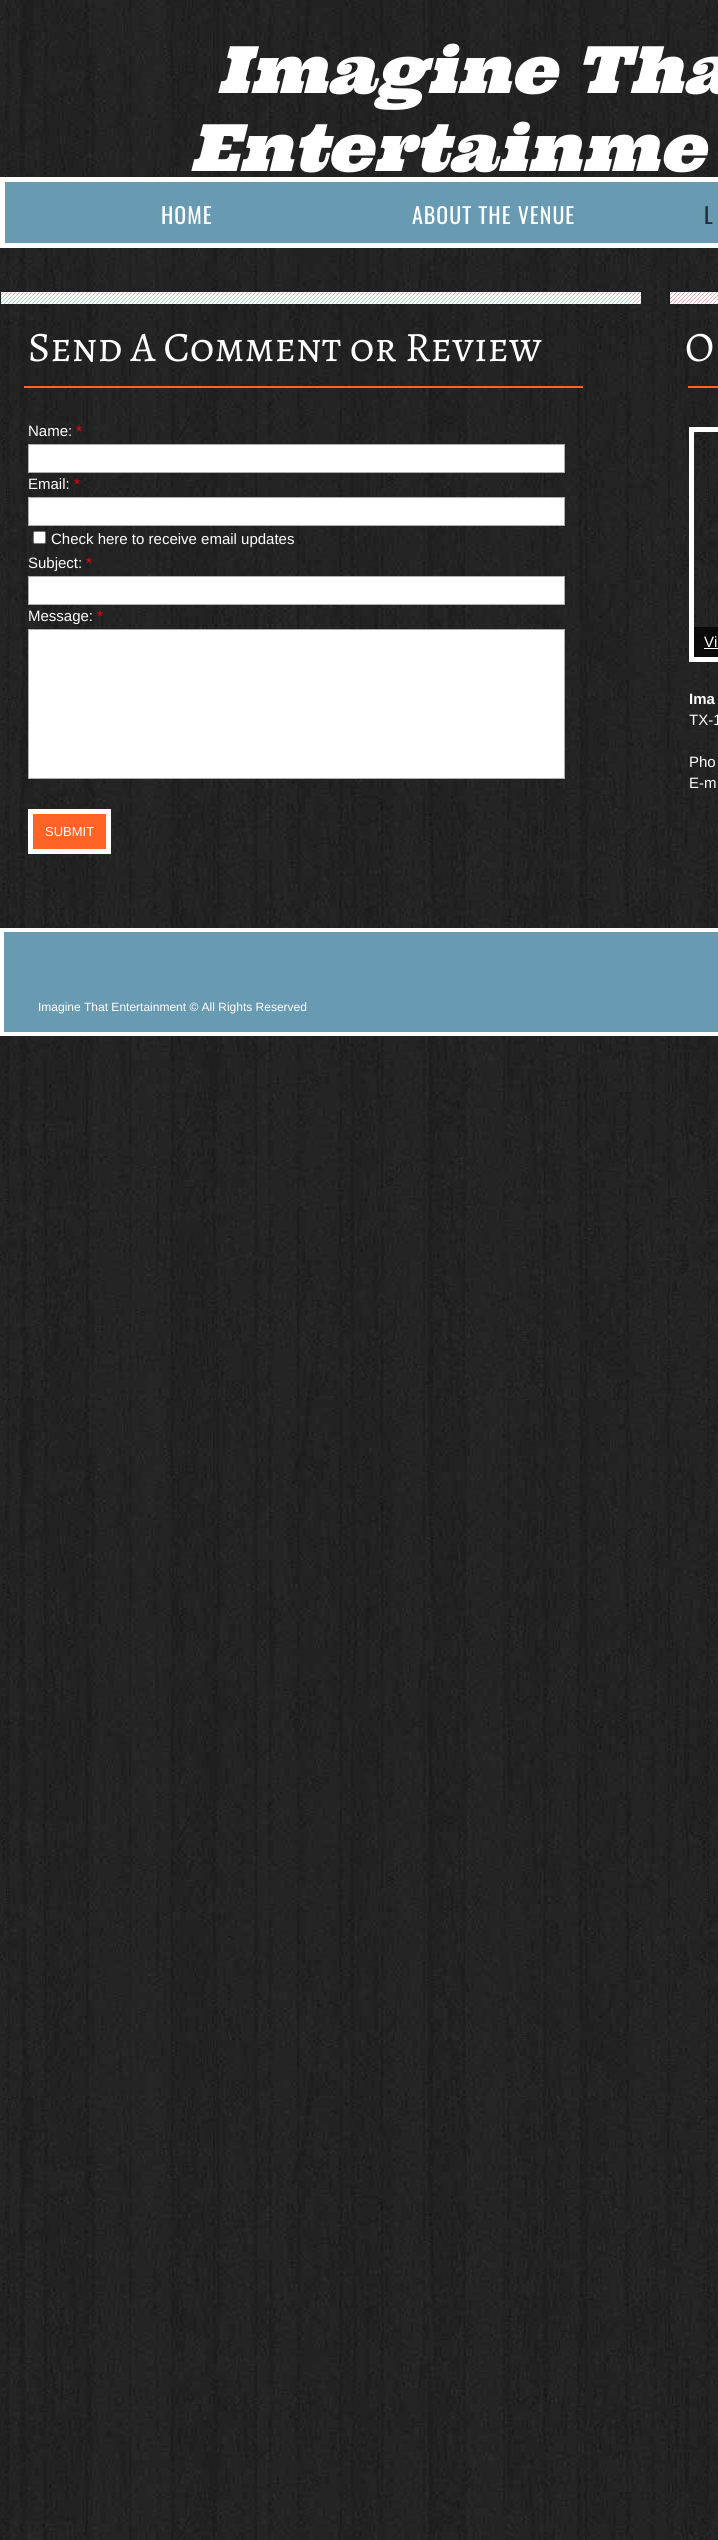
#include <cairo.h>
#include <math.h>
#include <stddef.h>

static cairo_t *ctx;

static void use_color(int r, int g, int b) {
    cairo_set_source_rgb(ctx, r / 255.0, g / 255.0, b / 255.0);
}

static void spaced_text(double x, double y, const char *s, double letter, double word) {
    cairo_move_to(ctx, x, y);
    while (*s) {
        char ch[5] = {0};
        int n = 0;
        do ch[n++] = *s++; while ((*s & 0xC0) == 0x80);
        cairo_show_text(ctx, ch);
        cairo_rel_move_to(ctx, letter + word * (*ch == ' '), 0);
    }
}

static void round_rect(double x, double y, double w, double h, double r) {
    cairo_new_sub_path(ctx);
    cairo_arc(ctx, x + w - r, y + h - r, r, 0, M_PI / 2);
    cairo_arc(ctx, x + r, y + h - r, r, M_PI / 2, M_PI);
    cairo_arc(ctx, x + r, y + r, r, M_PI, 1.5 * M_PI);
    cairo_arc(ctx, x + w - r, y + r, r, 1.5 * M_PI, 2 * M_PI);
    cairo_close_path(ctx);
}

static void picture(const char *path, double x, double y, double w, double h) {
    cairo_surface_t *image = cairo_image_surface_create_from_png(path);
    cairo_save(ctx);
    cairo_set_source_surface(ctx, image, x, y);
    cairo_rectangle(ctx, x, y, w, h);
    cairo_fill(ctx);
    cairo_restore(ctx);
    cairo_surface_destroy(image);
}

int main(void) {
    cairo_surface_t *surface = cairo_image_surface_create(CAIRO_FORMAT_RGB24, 718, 2540);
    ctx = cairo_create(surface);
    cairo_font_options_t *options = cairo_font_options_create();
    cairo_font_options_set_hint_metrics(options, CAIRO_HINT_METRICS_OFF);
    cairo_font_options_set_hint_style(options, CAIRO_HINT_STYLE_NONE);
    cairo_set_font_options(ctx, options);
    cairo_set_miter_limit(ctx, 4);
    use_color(255, 255, 255);
    cairo_paint(ctx);
    picture("img1.png", 0, 0, 718, 2540);
    cairo_select_font_face(ctx, "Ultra", CAIRO_FONT_SLANT_ITALIC, CAIRO_FONT_WEIGHT_NORMAL);
    cairo_set_font_size(ctx, 65);
    use_color(255, 255, 255);
    cairo_move_to(ctx, 217, 93);
    cairo_show_text(ctx, "Imagine Tha");
    cairo_move_to(ctx, 190, 171);
    cairo_show_text(ctx, "Entertainme");
    use_color(104, 155, 177);
    cairo_rectangle(ctx, 2.5, 179.5, 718, 66);
    cairo_fill_preserve(ctx);
    use_color(255, 255, 255);
    cairo_set_line_width(ctx, 5);
    cairo_stroke(ctx);
    cairo_select_font_face(ctx, "Oswald", CAIRO_FONT_SLANT_NORMAL, CAIRO_FONT_WEIGHT_NORMAL);
    cairo_set_font_size(ctx, 22);
    spaced_text(161, 224, "HOME", 1, 0);
    spaced_text(412, 224, "ABOUT THE VENUE", 1, 0);
    use_color(33, 42, 54);
    spaced_text(704, 224, "L", 1, 0);
    picture("img2.png", 1, 292, 320, 12);
    picture("img2.png", 321, 292, 320, 12);
    picture("img3.png", 670, 292, 48, 12);
    cairo_select_font_face(ctx, "Alegreya SC", CAIRO_FONT_SLANT_NORMAL, CAIRO_FONT_WEIGHT_NORMAL);
    cairo_set_font_size(ctx, 42);
    use_color(255, 255, 255);
    cairo_move_to(ctx, 28, 361);
    cairo_show_text(ctx, "Send A Comment or Review");
    cairo_move_to(ctx, 685, 361);
    cairo_show_text(ctx, "O");
    use_color(255, 99, 38);
    cairo_rectangle(ctx, 24, 386, 559, 2);
    cairo_fill(ctx);
    cairo_rectangle(ctx, 688, 386, 30, 2);
    cairo_fill(ctx);
    cairo_select_font_face(ctx, "Liberation Sans", CAIRO_FONT_SLANT_NORMAL, CAIRO_FONT_WEIGHT_NORMAL);
    cairo_set_font_size(ctx, 15);
    use_color(255, 255, 255);
    cairo_move_to(ctx, 28, 436);
    cairo_show_text(ctx, "Name:");
    use_color(255, 0, 0);
    cairo_move_to(ctx, 76, 436);
    cairo_show_text(ctx, "*");
    use_color(255, 255, 255);
    cairo_rectangle(ctx, 28.5, 444.5, 536, 28);
    cairo_fill_preserve(ctx);
    use_color(173, 173, 173);
    cairo_set_line_width(ctx, 1);
    cairo_stroke(ctx);
    use_color(255, 255, 255);
    cairo_move_to(ctx, 28, 489);
    cairo_show_text(ctx, "Email:");
    use_color(255, 0, 0);
    cairo_move_to(ctx, 74, 489);
    cairo_show_text(ctx, "*");
    use_color(255, 255, 255);
    cairo_rectangle(ctx, 28.5, 497.5, 536, 28);
    cairo_fill_preserve(ctx);
    use_color(173, 173, 173);
    cairo_stroke(ctx);
    use_color(255, 255, 255);
    round_rect(33.5, 531.5, 12, 12, 1.5);
    cairo_fill_preserve(ctx);
    use_color(118, 118, 118);
    cairo_stroke(ctx);
    use_color(255, 255, 255);
    cairo_move_to(ctx, 51, 544);
    cairo_show_text(ctx, "Check here to receive email updates");
    cairo_move_to(ctx, 28, 568);
    cairo_show_text(ctx, "Subject:");
    use_color(255, 0, 0);
    cairo_move_to(ctx, 86, 568);
    cairo_show_text(ctx, "*");
    use_color(255, 255, 255);
    cairo_rectangle(ctx, 28.5, 576.5, 536, 28);
    cairo_fill_preserve(ctx);
    use_color(173, 173, 173);
    cairo_stroke(ctx);
    use_color(255, 255, 255);
    cairo_move_to(ctx, 28, 621);
    cairo_show_text(ctx, "Message:");
    use_color(255, 0, 0);
    cairo_move_to(ctx, 97, 621);
    cairo_show_text(ctx, "*");
    use_color(255, 255, 255);
    cairo_rectangle(ctx, 28.5, 629.5, 536, 149);
    cairo_fill_preserve(ctx);
    use_color(173, 173, 173);
    cairo_stroke(ctx);
    use_color(255, 99, 38);
    cairo_rectangle(ctx, 30.5, 811.5, 78, 40);
    cairo_fill_preserve(ctx);
    use_color(255, 255, 255);
    cairo_set_line_width(ctx, 5);
    cairo_stroke(ctx);
    cairo_set_font_size(ctx, 13);
    cairo_move_to(ctx, 45, 836);
    cairo_show_text(ctx, "SUBMIT");
    cairo_rectangle(ctx, 691.5, 429.5, 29, 230);
    cairo_stroke(ctx);
    cairo_set_source_rgba(ctx, 0, 0, 0, 0.7);
    cairo_rectangle(ctx, 694, 627, 24, 30);
    cairo_fill(ctx);
    cairo_set_font_size(ctx, 15);
    use_color(255, 255, 255);
    cairo_move_to(ctx, 704, 647);
    cairo_show_text(ctx, "Vi");
    cairo_rectangle(ctx, 704, 648, 14, 1);
    cairo_fill(ctx);
    cairo_select_font_face(ctx, "Liberation Sans", CAIRO_FONT_SLANT_NORMAL, CAIRO_FONT_WEIGHT_BOLD);
    cairo_move_to(ctx, 689, 704);
    cairo_show_text(ctx, "Ima");
    cairo_select_font_face(ctx, "Liberation Sans", CAIRO_FONT_SLANT_NORMAL, CAIRO_FONT_WEIGHT_NORMAL);
    cairo_move_to(ctx, 689, 725);
    cairo_show_text(ctx, "TX-1");
    cairo_move_to(ctx, 689, 767);
    cairo_show_text(ctx, "Pho");
    cairo_move_to(ctx, 689, 788);
    cairo_show_text(ctx, "E-m");
    use_color(104, 155, 177);
    cairo_rectangle(ctx, 2, 930, 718, 104);
    cairo_fill_preserve(ctx);
    use_color(255, 255, 255);
    cairo_set_line_width(ctx, 4);
    cairo_stroke(ctx);
    cairo_set_font_size(ctx, 12);
    cairo_move_to(ctx, 38, 1011);
    cairo_show_text(ctx, "Imagine That Entertainment © All Rights Reserved");
    cairo_surface_write_to_png(surface, "result.png");
    cairo_font_options_destroy(options);
    cairo_destroy(ctx);
    cairo_surface_destroy(surface);
    return 0;
}
